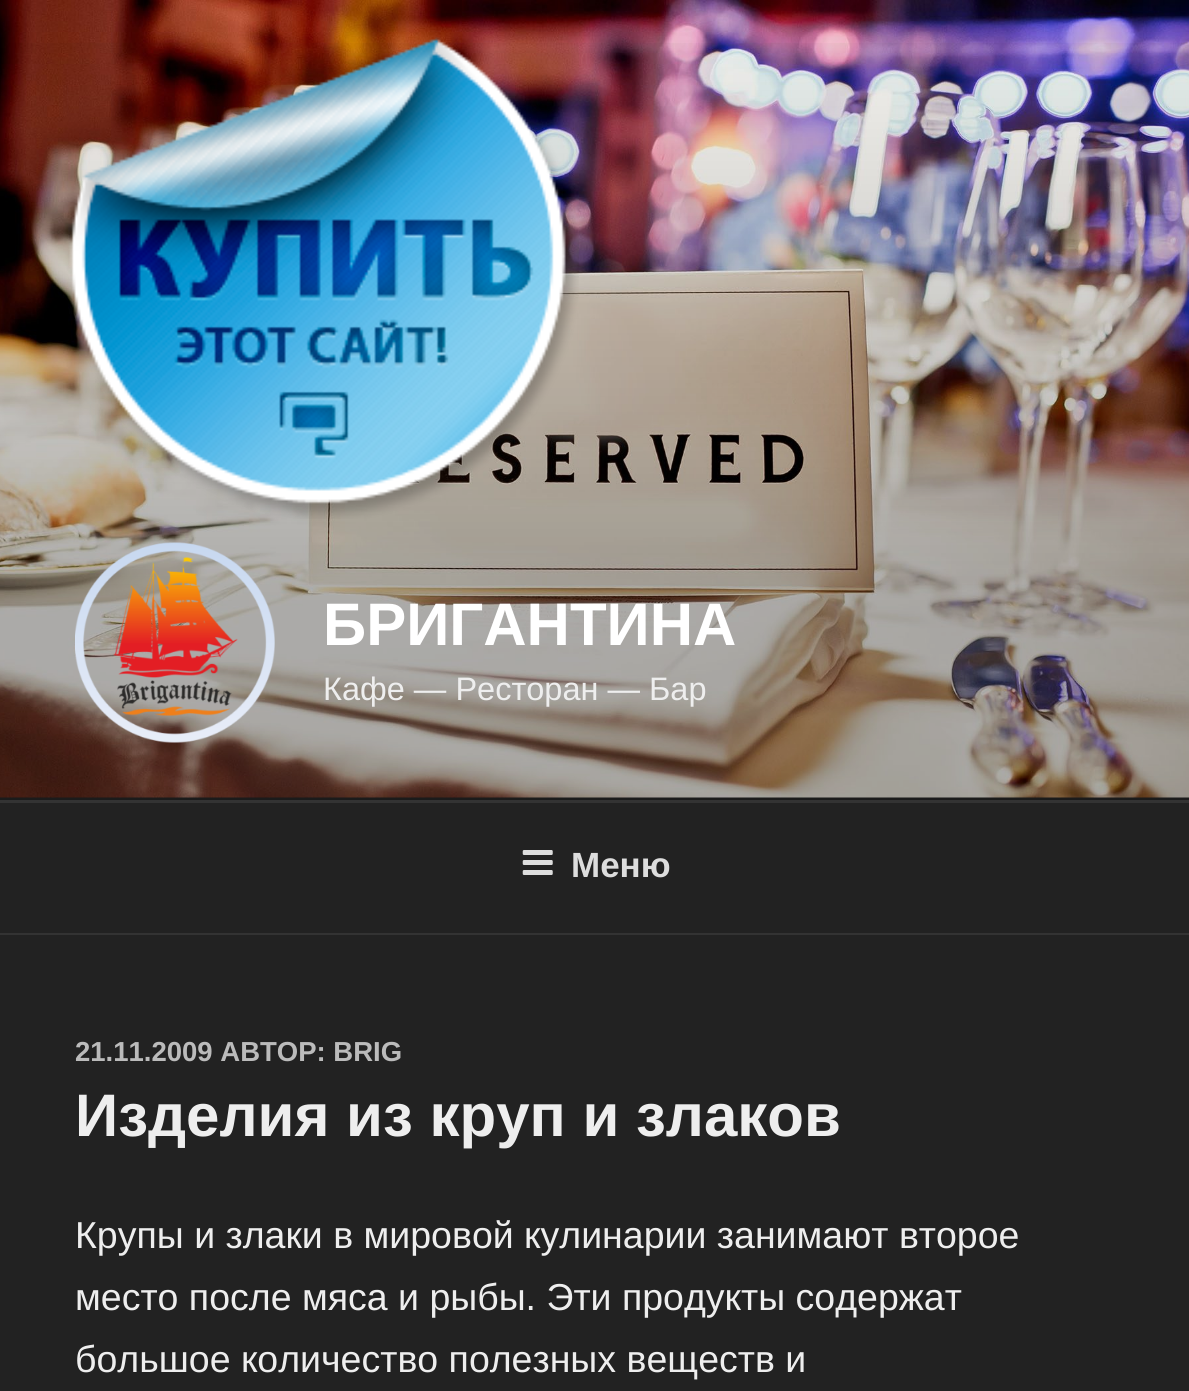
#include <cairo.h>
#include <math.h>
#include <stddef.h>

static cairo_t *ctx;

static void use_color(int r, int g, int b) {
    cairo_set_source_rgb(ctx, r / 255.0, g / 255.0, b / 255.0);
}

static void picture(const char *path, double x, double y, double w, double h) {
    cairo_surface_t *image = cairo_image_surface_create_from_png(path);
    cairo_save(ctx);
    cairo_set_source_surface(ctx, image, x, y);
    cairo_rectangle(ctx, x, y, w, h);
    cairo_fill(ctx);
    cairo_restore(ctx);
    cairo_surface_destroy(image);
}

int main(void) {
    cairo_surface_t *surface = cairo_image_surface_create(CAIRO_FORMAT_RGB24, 1189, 1391);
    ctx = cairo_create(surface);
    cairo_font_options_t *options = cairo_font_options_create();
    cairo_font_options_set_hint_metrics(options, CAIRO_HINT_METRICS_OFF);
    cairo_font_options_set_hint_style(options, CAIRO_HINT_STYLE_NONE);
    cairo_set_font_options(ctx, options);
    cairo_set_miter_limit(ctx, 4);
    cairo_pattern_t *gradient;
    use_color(38, 38, 38);
    cairo_paint(ctx);
    picture("img1.png", 0, 0, 1189, 798);
    gradient = cairo_pattern_create_linear(595, 0, 595, 800);
    cairo_pattern_add_color_stop_rgba(gradient, 0, 0, 0, 0, 0);
    cairo_pattern_add_color_stop_rgba(gradient, 0.75, 0, 0, 0, 0.3);
    cairo_pattern_add_color_stop_rgba(gradient, 1, 0, 0, 0, 0.3);
    cairo_set_source(ctx, gradient);
    cairo_pattern_destroy(gradient);
    cairo_rectangle(ctx, 0, 43, 1189, 757);
    cairo_fill(ctx);
    picture("img2.png", 69, 37, 510, 482);
    picture("img3.png", 75, 542, 200, 201);
    cairo_select_font_face(ctx, "Liberation Sans", CAIRO_FONT_SLANT_NORMAL, CAIRO_FONT_WEIGHT_BOLD);
    cairo_set_font_size(ctx, 60);
    use_color(255, 255, 255);
    cairo_move_to(ctx, 323, 645);
    cairo_show_text(ctx, "БРИГАНТИНА");
    cairo_select_font_face(ctx, "Liberation Sans", CAIRO_FONT_SLANT_NORMAL, CAIRO_FONT_WEIGHT_NORMAL);
    cairo_set_font_size(ctx, 32.5);
    use_color(238, 238, 238);
    cairo_move_to(ctx, 323, 700);
    cairo_show_text(ctx, "Кафе — Ресторан — Бар");
    use_color(34, 34, 34);
    cairo_rectangle(ctx, 0, 803, 1189, 130);
    cairo_fill(ctx);
    use_color(51, 51, 51);
    cairo_rectangle(ctx, 0, 800, 1189, 3);
    cairo_fill(ctx);
    cairo_rectangle(ctx, 0, 933, 1189, 2);
    cairo_fill(ctx);
    picture("img4.png", 522, 850, 31, 25);
    cairo_select_font_face(ctx, "Liberation Sans", CAIRO_FONT_SLANT_NORMAL, CAIRO_FONT_WEIGHT_BOLD);
    cairo_set_font_size(ctx, 35);
    use_color(221, 221, 221);
    cairo_move_to(ctx, 571, 877);
    cairo_show_text(ctx, "Меню");
    use_color(34, 34, 34);
    cairo_rectangle(ctx, 0, 935, 1189, 456);
    cairo_fill(ctx);
    cairo_set_font_size(ctx, 27.5);
    use_color(187, 187, 187);
    cairo_move_to(ctx, 75, 1061);
    cairo_show_text(ctx, "21.11.2009 АВТОР: BRIG");
    cairo_set_font_size(ctx, 60);
    use_color(238, 238, 238);
    cairo_move_to(ctx, 75, 1136);
    cairo_show_text(ctx, "Изделия из круп и злаков");
    cairo_select_font_face(ctx, "Liberation Sans", CAIRO_FONT_SLANT_NORMAL, CAIRO_FONT_WEIGHT_NORMAL);
    cairo_set_font_size(ctx, 37.5);
    cairo_move_to(ctx, 75, 1248);
    cairo_show_text(ctx, "Крупы и злаки в мировой кулинарии занимают второе");
    cairo_move_to(ctx, 75, 1310);
    cairo_show_text(ctx, "место после мяса и рыбы. Эти продукты содержат");
    cairo_move_to(ctx, 75, 1372);
    cairo_show_text(ctx, "большое количество полезных веществ и");
    cairo_surface_write_to_png(surface, "result.png");
    cairo_font_options_destroy(options);
    cairo_destroy(ctx);
    cairo_surface_destroy(surface);
    return 0;
}
